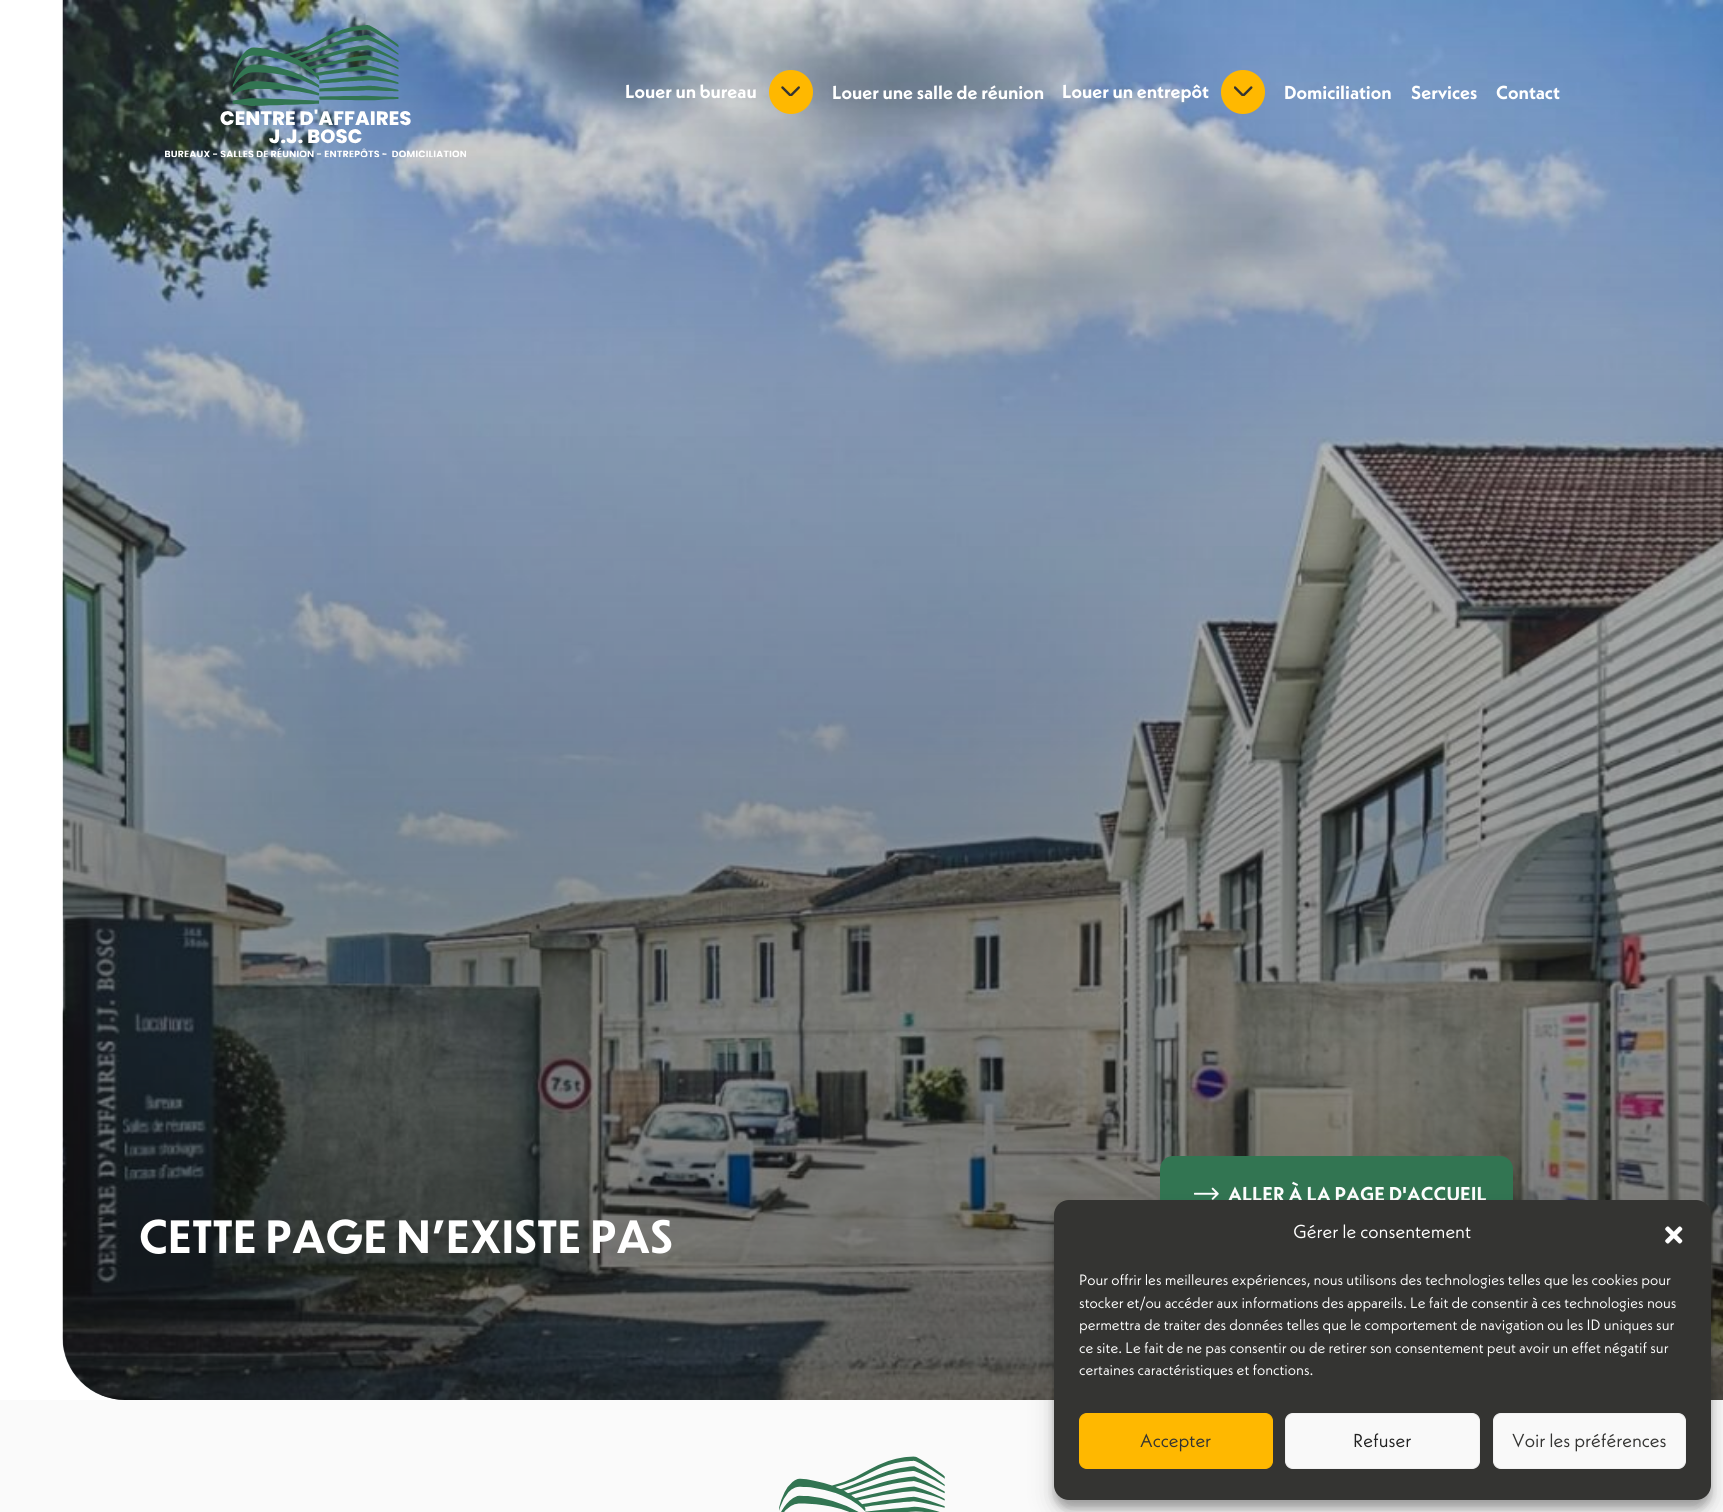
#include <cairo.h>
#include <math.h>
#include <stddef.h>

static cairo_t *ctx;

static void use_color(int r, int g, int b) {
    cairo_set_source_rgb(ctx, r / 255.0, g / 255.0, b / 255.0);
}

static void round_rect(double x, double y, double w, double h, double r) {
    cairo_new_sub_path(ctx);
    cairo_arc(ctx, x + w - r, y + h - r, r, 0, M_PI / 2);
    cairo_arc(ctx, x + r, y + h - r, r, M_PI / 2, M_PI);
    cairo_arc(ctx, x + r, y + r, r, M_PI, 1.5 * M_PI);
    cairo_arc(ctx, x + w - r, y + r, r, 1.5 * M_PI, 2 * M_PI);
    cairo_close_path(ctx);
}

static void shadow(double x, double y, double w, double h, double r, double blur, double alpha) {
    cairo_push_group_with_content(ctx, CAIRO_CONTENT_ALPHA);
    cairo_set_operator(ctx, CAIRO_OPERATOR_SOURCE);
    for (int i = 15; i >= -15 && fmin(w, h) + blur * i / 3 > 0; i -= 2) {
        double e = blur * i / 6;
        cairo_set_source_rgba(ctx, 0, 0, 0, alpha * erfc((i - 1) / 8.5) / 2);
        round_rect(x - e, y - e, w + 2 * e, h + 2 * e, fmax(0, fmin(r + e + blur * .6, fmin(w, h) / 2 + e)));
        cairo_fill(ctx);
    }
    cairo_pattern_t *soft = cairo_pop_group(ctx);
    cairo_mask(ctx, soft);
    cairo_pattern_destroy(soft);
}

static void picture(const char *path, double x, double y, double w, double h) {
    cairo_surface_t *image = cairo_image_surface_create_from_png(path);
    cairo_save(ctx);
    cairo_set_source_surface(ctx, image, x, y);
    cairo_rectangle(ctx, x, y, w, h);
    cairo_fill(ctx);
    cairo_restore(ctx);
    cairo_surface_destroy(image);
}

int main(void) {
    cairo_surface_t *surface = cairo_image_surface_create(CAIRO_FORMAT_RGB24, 1723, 1512);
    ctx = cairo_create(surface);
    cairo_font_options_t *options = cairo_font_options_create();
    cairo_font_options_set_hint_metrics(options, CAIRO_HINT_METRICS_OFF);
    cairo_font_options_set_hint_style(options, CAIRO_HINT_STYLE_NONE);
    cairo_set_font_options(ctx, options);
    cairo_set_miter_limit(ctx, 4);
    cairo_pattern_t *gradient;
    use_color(255, 255, 255);
    cairo_paint(ctx);
    picture("img4.png", 62, 0, 1661, 1400);
    gradient = cairo_pattern_create_linear(893, 1400, 893, 0);
    cairo_pattern_add_color_stop_rgba(gradient, 0, 0, 0, 0, 0.5);
    cairo_pattern_add_color_stop_rgba(gradient, 1, 0, 0, 0, 0.05);
    cairo_set_source(ctx, gradient);
    cairo_pattern_destroy(gradient);
    cairo_new_path(ctx);
    cairo_move_to(ctx, 63, 0);
    cairo_line_to(ctx, 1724, 0);
    cairo_line_to(ctx, 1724, 1400);
    cairo_line_to(ctx, 126, 1400);
    cairo_curve_to(ctx, 91, 1400, 63, 1372, 63, 1337);
    cairo_close_path(ctx);
    cairo_fill(ctx);
    picture("img1.png", 165, 25, 301, 133);
    cairo_select_font_face(ctx, "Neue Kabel", CAIRO_FONT_SLANT_NORMAL, CAIRO_FONT_WEIGHT_BOLD);
    cairo_set_font_size(ctx, 18.75);
    use_color(255, 255, 255);
    cairo_move_to(ctx, 625, 98);
    cairo_show_text(ctx, "Louer un bureau");
    use_color(255, 184, 0);
    cairo_new_path(ctx);
    cairo_arc(ctx, 791, 92, 22, 0, 2 * M_PI);
    cairo_fill(ctx);
    picture("img2.png", 781, 86, 19, 10);
    use_color(255, 255, 255);
    cairo_move_to(ctx, 832, 99);
    cairo_show_text(ctx, "Louer une salle de réunion");
    cairo_move_to(ctx, 1062, 98);
    cairo_show_text(ctx, "Louer un entrepôt");
    use_color(255, 184, 0);
    cairo_new_path(ctx);
    cairo_arc(ctx, 1243, 92, 22, 0, 2 * M_PI);
    cairo_fill(ctx);
    picture("img3.png", 1234, 86, 19, 10);
    use_color(255, 255, 255);
    cairo_move_to(ctx, 1284, 99);
    cairo_show_text(ctx, "Domiciliation");
    cairo_move_to(ctx, 1411, 99);
    cairo_show_text(ctx, "Services");
    cairo_move_to(ctx, 1496, 99);
    cairo_show_text(ctx, "Contact");
    use_color(50, 117, 82);
    round_rect(1160, 1156, 353, 75, 13);
    cairo_fill(ctx);
    picture("img5.png", 1194, 1187, 25, 13);
    cairo_set_font_size(ctx, 20);
    use_color(255, 255, 255);
    cairo_move_to(ctx, 1228, 1201);
    cairo_show_text(ctx, "ALLER À LA PAGE D'ACCUEIL");
    cairo_select_font_face(ctx, "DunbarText", CAIRO_FONT_SLANT_NORMAL, CAIRO_FONT_WEIGHT_BOLD);
    cairo_set_font_size(ctx, 43.75);
    cairo_move_to(ctx, 139, 1253);
    cairo_show_text(ctx, "CETTE PAGE N'EXISTE PAS");
    use_color(250, 250, 250);
    cairo_rectangle(ctx, 0, 1400, 1723, 112);
    cairo_fill(ctx);
    use_color(0, 0, 0);
    shadow(1054, 1208, 657, 300, 15, 4, 0.23);
    shadow(1054, 1213, 657, 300, 15, 12.5, 0.19);
    use_color(52, 52, 50);
    round_rect(1054, 1200, 657, 300, 15);
    cairo_fill(ctx);
    cairo_select_font_face(ctx, "Neue Kabel", CAIRO_FONT_SLANT_NORMAL, CAIRO_FONT_WEIGHT_NORMAL);
    cairo_set_font_size(ctx, 18.75);
    use_color(255, 255, 255);
    cairo_move_to(ctx, 1293, 1238);
    cairo_show_text(ctx, "Gérer le consentement");
    picture("img6.png", 1665, 1226, 18, 18);
    cairo_set_font_size(ctx, 15);
    cairo_move_to(ctx, 1079, 1285);
    cairo_show_text(ctx, "Pour offrir les meilleures expériences, nous utilisons des technologies telles que les cookies pour");
    cairo_move_to(ctx, 1079, 1308);
    cairo_show_text(ctx, "stocker et/ou accéder aux informations des appareils. Le fait de consentir à ces technologies nous");
    cairo_move_to(ctx, 1079, 1330);
    cairo_show_text(ctx, "permettra de traiter des données telles que le comportement de navigation ou les ID uniques sur");
    cairo_move_to(ctx, 1079, 1353);
    cairo_show_text(ctx, "ce site. Le fait de ne pas consentir ou de retirer son consentement peut avoir un effet négatif sur");
    cairo_move_to(ctx, 1079, 1375);
    cairo_show_text(ctx, "certaines caractéristiques et fonctions.");
    use_color(255, 184, 0);
    round_rect(1079.5, 1413.5, 193, 55, 7.5);
    cairo_fill_preserve(ctx);
    cairo_set_line_width(ctx, 1);
    cairo_stroke(ctx);
    cairo_set_font_size(ctx, 18.75);
    use_color(52, 52, 50);
    cairo_move_to(ctx, 1140, 1447);
    cairo_show_text(ctx, "Accepter");
    use_color(249, 249, 249);
    round_rect(1285.5, 1413.5, 194, 55, 7.5);
    cairo_fill_preserve(ctx);
    use_color(242, 242, 242);
    cairo_stroke(ctx);
    use_color(34, 34, 34);
    cairo_move_to(ctx, 1353, 1447);
    cairo_show_text(ctx, "Refuser");
    use_color(249, 249, 249);
    round_rect(1493.5, 1413.5, 192, 55, 7.5);
    cairo_fill_preserve(ctx);
    use_color(242, 242, 242);
    cairo_stroke(ctx);
    use_color(52, 52, 50);
    cairo_move_to(ctx, 1512, 1447);
    cairo_show_text(ctx, "Voir les préférences");
    picture("img7.png", 779, 1456, 166, 56);
    cairo_surface_write_to_png(surface, "result.png");
    cairo_font_options_destroy(options);
    cairo_destroy(ctx);
    cairo_surface_destroy(surface);
    return 0;
}
